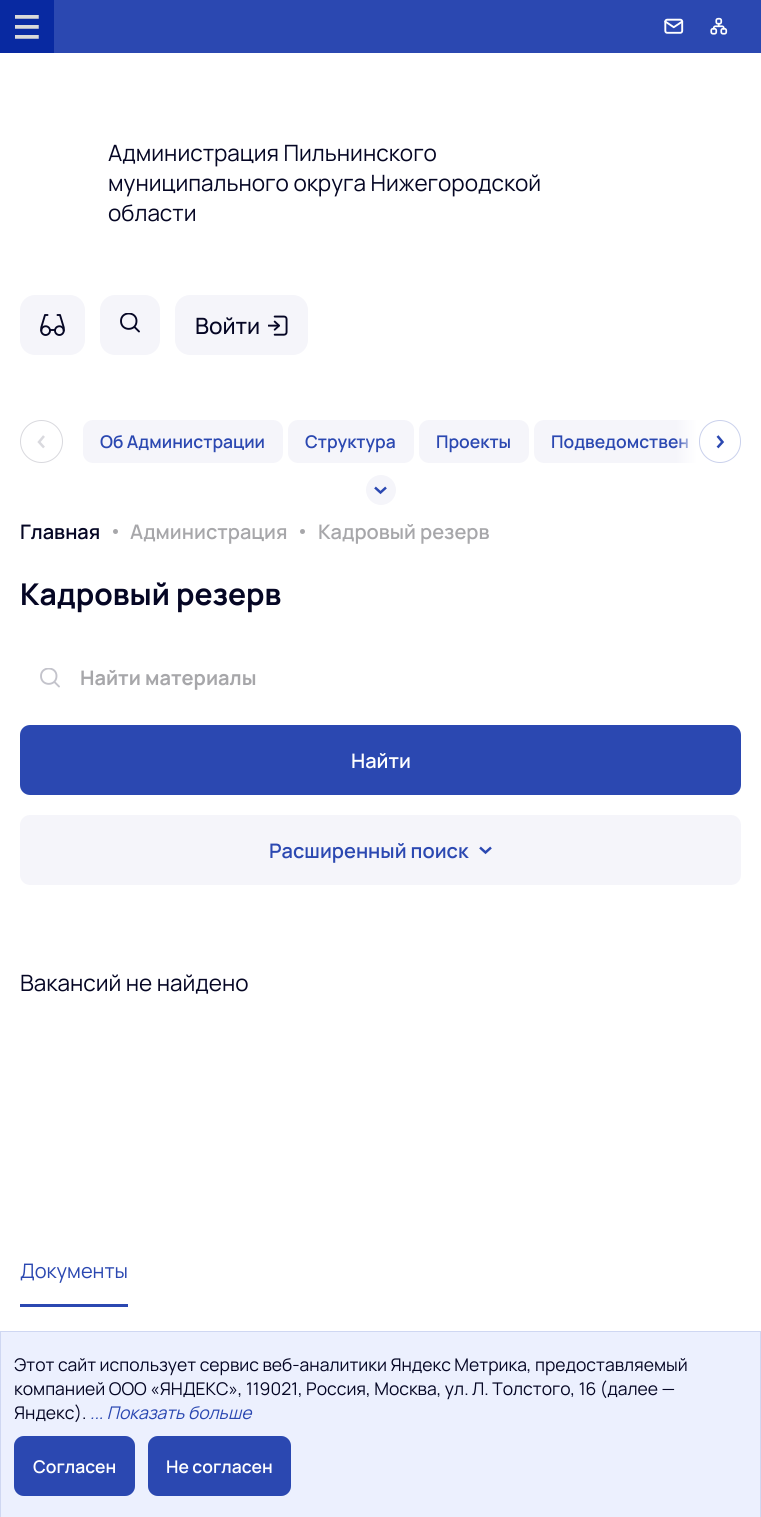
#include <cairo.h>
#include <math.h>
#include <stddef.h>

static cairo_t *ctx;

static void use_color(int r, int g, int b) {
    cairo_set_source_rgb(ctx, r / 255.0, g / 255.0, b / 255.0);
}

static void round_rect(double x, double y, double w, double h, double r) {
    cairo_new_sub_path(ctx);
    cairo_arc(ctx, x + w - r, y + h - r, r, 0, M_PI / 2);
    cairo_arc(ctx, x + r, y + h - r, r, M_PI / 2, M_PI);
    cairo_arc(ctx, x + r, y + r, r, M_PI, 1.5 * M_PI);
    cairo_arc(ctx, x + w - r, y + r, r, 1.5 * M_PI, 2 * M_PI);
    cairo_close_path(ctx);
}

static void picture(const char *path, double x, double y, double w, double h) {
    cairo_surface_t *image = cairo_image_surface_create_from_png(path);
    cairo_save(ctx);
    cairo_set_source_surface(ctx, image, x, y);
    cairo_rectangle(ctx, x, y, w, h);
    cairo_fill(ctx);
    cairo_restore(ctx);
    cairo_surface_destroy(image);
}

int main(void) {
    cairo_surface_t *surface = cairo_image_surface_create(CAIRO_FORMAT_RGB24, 761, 1517);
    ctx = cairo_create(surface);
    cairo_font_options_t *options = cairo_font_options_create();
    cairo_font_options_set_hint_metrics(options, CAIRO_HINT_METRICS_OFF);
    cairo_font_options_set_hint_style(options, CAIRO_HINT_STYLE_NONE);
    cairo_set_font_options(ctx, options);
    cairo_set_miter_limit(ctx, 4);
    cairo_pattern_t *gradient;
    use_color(255, 255, 255);
    cairo_paint(ctx);
    use_color(43, 72, 177);
    cairo_rectangle(ctx, 54, 0, 707, 53);
    cairo_fill(ctx);
    use_color(8, 41, 161);
    cairo_rectangle(ctx, 0, 0, 54, 53);
    cairo_fill(ctx);
    picture("img1.png", 15, 15, 24, 24);
    picture("img2.png", 664, 18, 20, 16);
    picture("img3.png", 710, 17, 18, 18);
    cairo_select_font_face(ctx, "Manrope", CAIRO_FONT_SLANT_NORMAL, CAIRO_FONT_WEIGHT_NORMAL);
    cairo_set_font_size(ctx, 22.5);
    use_color(5, 6, 36);
    cairo_move_to(ctx, 108, 161);
    cairo_show_text(ctx, "Администрация Пильнинского");
    cairo_move_to(ctx, 108, 191);
    cairo_show_text(ctx, "муниципального округа Нижегородской");
    cairo_move_to(ctx, 108, 221);
    cairo_show_text(ctx, "области");
    use_color(245, 245, 250);
    round_rect(20, 295, 65, 60, 15);
    cairo_fill(ctx);
    picture("img4.png", 40, 314, 25, 22);
    round_rect(100, 295, 60, 60, 15);
    cairo_fill(ctx);
    cairo_save(ctx);
    cairo_rectangle(ctx, 120, 313, 20, 20);
    cairo_clip(ctx);
    cairo_new_path(ctx);
    cairo_move_to(ctx, 139, 331.5);
    cairo_line_to(ctx, 134.5, 327);
    cairo_move_to(ctx, 121, 321);
    cairo_curve_to(ctx, 121, 311, 136.5, 311, 136.5, 321);
    cairo_curve_to(ctx, 136.5, 331.5, 121, 331.5, 121, 321);
    cairo_close_path(ctx);
    use_color(5, 6, 36);
    cairo_set_line_width(ctx, 1.9);
    cairo_set_line_cap(ctx, CAIRO_LINE_CAP_ROUND);
    cairo_set_line_join(ctx, CAIRO_LINE_JOIN_ROUND);
    cairo_stroke(ctx);
    cairo_restore(ctx);
    round_rect(175, 295, 133, 60, 15);
    cairo_fill(ctx);
    cairo_select_font_face(ctx, "Manrope Medium", CAIRO_FONT_SLANT_NORMAL, CAIRO_FONT_WEIGHT_NORMAL);
    use_color(5, 6, 36);
    cairo_move_to(ctx, 195, 334);
    cairo_show_text(ctx, "Войти");
    picture("img5.png", 268, 315, 20, 21);
    cairo_arc(ctx, 41.5, 441.5, 21, 0, 2 * M_PI);
    use_color(217, 217, 222);
    cairo_set_line_width(ctx, 1);
    cairo_stroke(ctx);
    cairo_new_path(ctx);
    cairo_move_to(ctx, 44, 436);
    cairo_line_to(ctx, 39, 442);
    cairo_line_to(ctx, 44, 447.5);
    cairo_set_line_width(ctx, 2.5);
    cairo_stroke(ctx);
    use_color(245, 245, 250);
    cairo_new_path(ctx);
    cairo_move_to(ctx, 544, 420);
    cairo_line_to(ctx, 699, 420);
    cairo_line_to(ctx, 699, 463);
    cairo_line_to(ctx, 544, 463);
    cairo_curve_to(ctx, 538.5, 463, 534, 458.5, 534, 453);
    cairo_line_to(ctx, 534, 430);
    cairo_curve_to(ctx, 534, 424.5, 538.5, 420, 544, 420);
    cairo_close_path(ctx);
    cairo_fill(ctx);
    cairo_select_font_face(ctx, "Manrope SemiBold", CAIRO_FONT_SLANT_NORMAL, CAIRO_FONT_WEIGHT_NORMAL);
    cairo_set_font_size(ctx, 17.5);
    use_color(43, 72, 177);
    cairo_move_to(ctx, 551, 448);
    cairo_show_text(ctx, "Подведомствен");
    gradient = cairo_pattern_create_linear(699, 441, 676, 441);
    cairo_pattern_add_color_stop_rgba(gradient, 0.1, 1, 1, 1, 1);
    cairo_pattern_add_color_stop_rgba(gradient, 1, 1, 1, 1, 0);
    cairo_set_source(ctx, gradient);
    cairo_pattern_destroy(gradient);
    cairo_rectangle(ctx, 676, 420, 23, 43);
    cairo_fill(ctx);
    use_color(245, 245, 250);
    round_rect(83, 420, 200, 43, 10);
    cairo_fill(ctx);
    use_color(43, 72, 177);
    cairo_move_to(ctx, 100, 448);
    cairo_show_text(ctx, "Об Администрации");
    use_color(245, 245, 250);
    round_rect(288, 420, 126, 43, 10);
    cairo_fill(ctx);
    use_color(43, 72, 177);
    cairo_move_to(ctx, 305, 448);
    cairo_show_text(ctx, "Структура");
    use_color(245, 245, 250);
    round_rect(419, 420, 110, 43, 10);
    cairo_fill(ctx);
    use_color(43, 72, 177);
    cairo_move_to(ctx, 436, 448);
    cairo_show_text(ctx, "Проекты");
    round_rect(699.5, 420.5, 41, 42, 20.5);
    use_color(202, 209, 236);
    cairo_set_line_width(ctx, 1);
    cairo_stroke(ctx);
    cairo_new_path(ctx);
    cairo_move_to(ctx, 717.5, 436);
    cairo_line_to(ctx, 722.5, 442);
    cairo_line_to(ctx, 717.5, 447.5);
    use_color(43, 72, 177);
    cairo_set_line_width(ctx, 2.5);
    cairo_stroke(ctx);
    use_color(245, 245, 250);
    cairo_arc(ctx, 381, 490, 15, 0, 2 * M_PI);
    cairo_fill(ctx);
    cairo_new_path(ctx);
    cairo_move_to(ctx, 375, 487.5);
    cairo_line_to(ctx, 380.5, 492.5);
    cairo_line_to(ctx, 386, 487.5);
    use_color(43, 72, 177);
    cairo_stroke(ctx);
    cairo_set_font_size(ctx, 20);
    use_color(5, 6, 36);
    cairo_move_to(ctx, 20, 539);
    cairo_show_text(ctx, "Главная");
    use_color(167, 167, 170);
    cairo_new_path(ctx);
    cairo_arc(ctx, 115.5, 531.5, 2.5, 0, 2 * M_PI);
    cairo_fill(ctx);
    cairo_move_to(ctx, 130, 539);
    cairo_show_text(ctx, "Администрация");
    cairo_new_path(ctx);
    cairo_arc(ctx, 302.5, 531.5, 2.5, 0, 2 * M_PI);
    cairo_fill(ctx);
    cairo_move_to(ctx, 318, 539);
    cairo_show_text(ctx, "Кадровый резерв");
    cairo_select_font_face(ctx, "Manrope", CAIRO_FONT_SLANT_NORMAL, CAIRO_FONT_WEIGHT_BOLD);
    cairo_set_font_size(ctx, 30);
    use_color(5, 6, 36);
    cairo_move_to(ctx, 20, 605);
    cairo_show_text(ctx, "Кадровый резерв");
    cairo_save(ctx);
    cairo_rectangle(ctx, 40, 668, 20, 20);
    cairo_clip(ctx);
    cairo_new_path(ctx);
    cairo_move_to(ctx, 59, 686.5);
    cairo_line_to(ctx, 54.5, 682);
    cairo_move_to(ctx, 41, 676);
    cairo_curve_to(ctx, 41, 666, 56.5, 666, 56.5, 676);
    cairo_curve_to(ctx, 56.5, 686.5, 41, 686.5, 41, 676);
    cairo_close_path(ctx);
    use_color(195, 195, 203);
    cairo_set_line_width(ctx, 1.9);
    cairo_set_line_cap(ctx, CAIRO_LINE_CAP_ROUND);
    cairo_set_line_join(ctx, CAIRO_LINE_JOIN_ROUND);
    cairo_stroke(ctx);
    cairo_restore(ctx);
    cairo_set_font_size(ctx, 20);
    use_color(167, 167, 170);
    cairo_move_to(ctx, 80, 685);
    cairo_show_text(ctx, "Найти материалы");
    use_color(43, 72, 177);
    round_rect(20, 725, 721, 70, 10);
    cairo_fill(ctx);
    cairo_select_font_face(ctx, "Manrope SemiBold", CAIRO_FONT_SLANT_NORMAL, CAIRO_FONT_WEIGHT_NORMAL);
    use_color(255, 255, 255);
    cairo_move_to(ctx, 351, 768);
    cairo_show_text(ctx, "Найти");
    use_color(245, 245, 250);
    round_rect(20, 815, 721, 70, 10);
    cairo_fill(ctx);
    use_color(43, 72, 177);
    cairo_move_to(ctx, 269, 858);
    cairo_show_text(ctx, "Расширенный поиск");
    cairo_new_path(ctx);
    cairo_move_to(ctx, 480, 847.5);
    cairo_line_to(ctx, 485.5, 852.5);
    cairo_line_to(ctx, 491, 847.5);
    cairo_stroke(ctx);
    cairo_select_font_face(ctx, "Manrope", CAIRO_FONT_SLANT_NORMAL, CAIRO_FONT_WEIGHT_NORMAL);
    cairo_set_font_size(ctx, 22.5);
    use_color(5, 6, 36);
    cairo_move_to(ctx, 20, 991);
    cairo_show_text(ctx, "Вакансий не найдено");
    cairo_set_font_size(ctx, 20);
    use_color(43, 72, 177);
    cairo_move_to(ctx, 20, 1278);
    cairo_show_text(ctx, "Документы");
    cairo_rectangle(ctx, 20, 1304, 108, 3);
    cairo_fill(ctx);
    use_color(236, 240, 254);
    cairo_rectangle(ctx, 0.5, 1331.5, 760, 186);
    cairo_fill_preserve(ctx);
    use_color(207, 215, 242);
    cairo_set_line_width(ctx, 1);
    cairo_stroke(ctx);
    cairo_set_font_size(ctx, 17.5);
    use_color(5, 6, 36);
    cairo_move_to(ctx, 14, 1371);
    cairo_show_text(ctx, "Этот сайт использует сервис веб-аналитики Яндекс Метрика, предоставляемый");
    cairo_move_to(ctx, 14, 1395);
    cairo_show_text(ctx, "компанией ООО «ЯНДЕКС», 119021, Россия, Москва, ул. Л. Толстого, 16 (далее —");
    cairo_move_to(ctx, 14, 1419);
    cairo_show_text(ctx, "Яндекс).");
    cairo_select_font_face(ctx, "Manrope", CAIRO_FONT_SLANT_ITALIC, CAIRO_FONT_WEIGHT_NORMAL);
    use_color(43, 72, 177);
    cairo_move_to(ctx, 90, 1419);
    cairo_show_text(ctx, "... Показать больше");
    round_rect(14, 1436, 121, 60, 10);
    cairo_fill(ctx);
    round_rect(14.5, 1436.5, 120, 59, 9.5);
    cairo_set_source_rgba(ctx, 0.169, 0.282, 0.694, 0.25);
    cairo_stroke(ctx);
    cairo_select_font_face(ctx, "Manrope SemiBold", CAIRO_FONT_SLANT_NORMAL, CAIRO_FONT_WEIGHT_NORMAL);
    use_color(255, 255, 255);
    cairo_move_to(ctx, 33, 1473);
    cairo_show_text(ctx, "Согласен");
    use_color(43, 72, 177);
    round_rect(148, 1436, 143, 60, 10);
    cairo_fill(ctx);
    round_rect(148.5, 1436.5, 142, 59, 9.5);
    cairo_set_source_rgba(ctx, 0.169, 0.282, 0.694, 0.25);
    cairo_stroke(ctx);
    use_color(255, 255, 255);
    cairo_move_to(ctx, 166, 1473);
    cairo_show_text(ctx, "Не согласен");
    cairo_surface_write_to_png(surface, "result.png");
    cairo_font_options_destroy(options);
    cairo_destroy(ctx);
    cairo_surface_destroy(surface);
    return 0;
}
